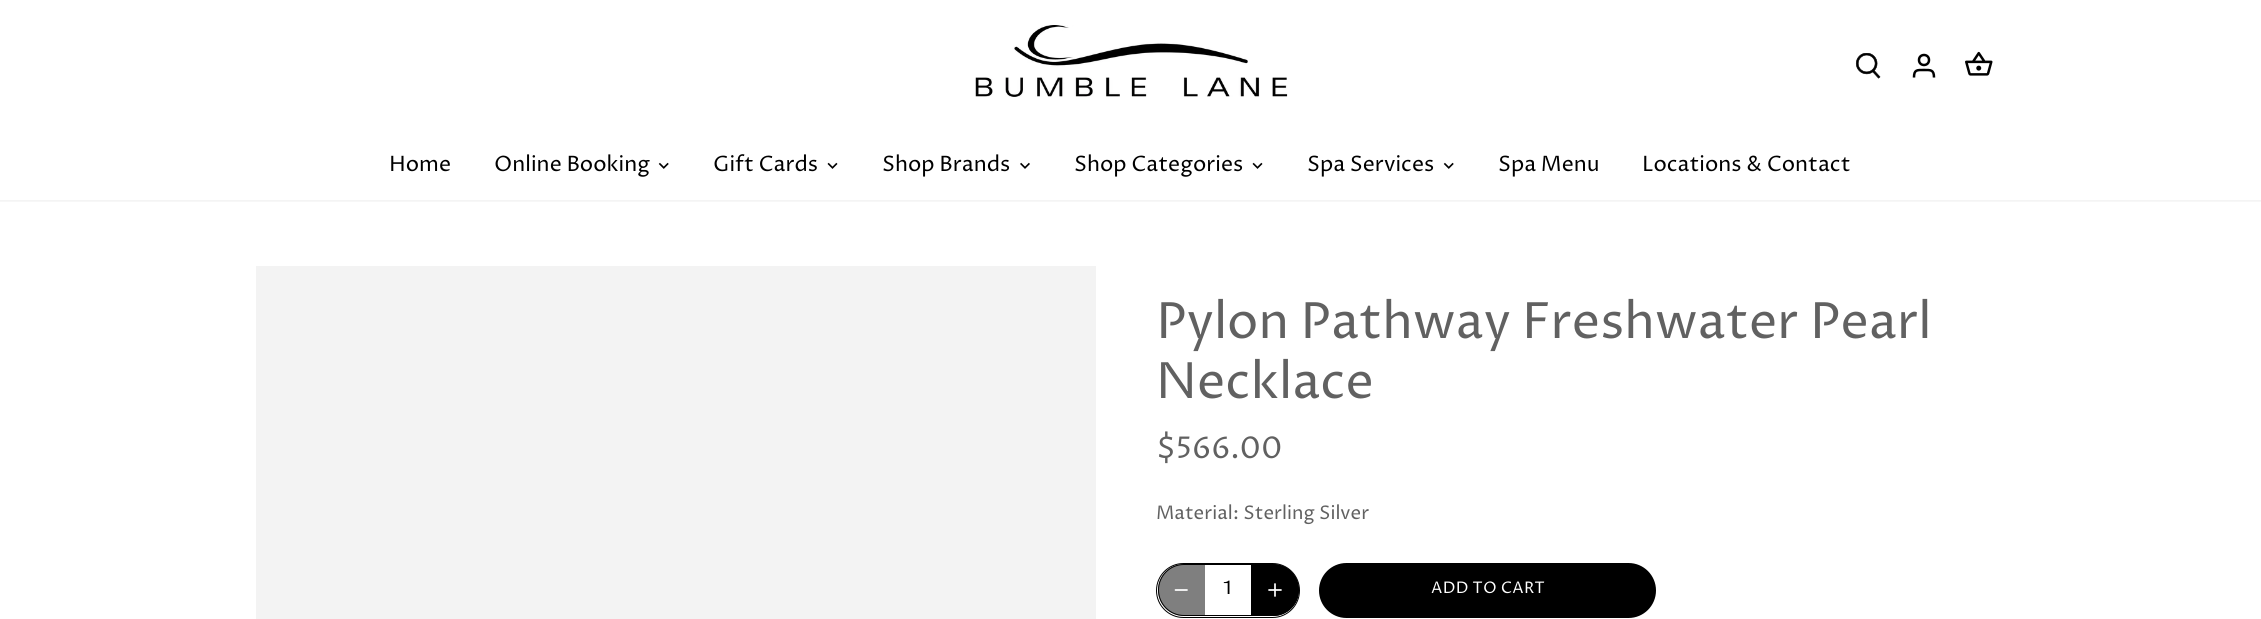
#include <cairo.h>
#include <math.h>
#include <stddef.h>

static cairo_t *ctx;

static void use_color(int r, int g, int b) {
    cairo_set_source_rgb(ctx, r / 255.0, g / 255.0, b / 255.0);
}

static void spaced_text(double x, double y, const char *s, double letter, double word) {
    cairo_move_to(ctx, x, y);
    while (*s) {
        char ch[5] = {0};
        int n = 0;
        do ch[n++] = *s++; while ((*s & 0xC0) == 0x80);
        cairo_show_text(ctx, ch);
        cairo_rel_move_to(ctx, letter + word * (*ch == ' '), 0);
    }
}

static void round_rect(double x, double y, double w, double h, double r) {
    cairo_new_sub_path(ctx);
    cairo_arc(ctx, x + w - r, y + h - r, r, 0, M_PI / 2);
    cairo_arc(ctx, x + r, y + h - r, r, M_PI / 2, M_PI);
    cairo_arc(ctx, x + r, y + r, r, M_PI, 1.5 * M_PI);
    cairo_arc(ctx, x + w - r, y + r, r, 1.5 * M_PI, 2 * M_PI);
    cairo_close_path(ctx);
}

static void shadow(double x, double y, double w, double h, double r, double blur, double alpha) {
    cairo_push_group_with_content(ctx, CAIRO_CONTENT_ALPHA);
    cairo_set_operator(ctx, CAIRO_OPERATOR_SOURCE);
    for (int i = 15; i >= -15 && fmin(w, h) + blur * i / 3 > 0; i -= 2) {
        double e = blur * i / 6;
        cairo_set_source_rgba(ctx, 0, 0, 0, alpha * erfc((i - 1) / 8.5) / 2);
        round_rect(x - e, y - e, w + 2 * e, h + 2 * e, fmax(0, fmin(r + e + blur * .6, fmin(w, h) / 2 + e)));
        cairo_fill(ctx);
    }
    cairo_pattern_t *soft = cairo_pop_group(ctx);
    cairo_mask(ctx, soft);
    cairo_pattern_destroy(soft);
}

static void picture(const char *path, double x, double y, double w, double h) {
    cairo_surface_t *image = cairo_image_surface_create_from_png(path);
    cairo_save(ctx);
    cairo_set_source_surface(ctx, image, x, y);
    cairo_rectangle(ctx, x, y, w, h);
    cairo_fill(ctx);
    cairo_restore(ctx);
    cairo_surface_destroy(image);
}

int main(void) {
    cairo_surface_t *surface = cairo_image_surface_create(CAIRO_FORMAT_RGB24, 2261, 619);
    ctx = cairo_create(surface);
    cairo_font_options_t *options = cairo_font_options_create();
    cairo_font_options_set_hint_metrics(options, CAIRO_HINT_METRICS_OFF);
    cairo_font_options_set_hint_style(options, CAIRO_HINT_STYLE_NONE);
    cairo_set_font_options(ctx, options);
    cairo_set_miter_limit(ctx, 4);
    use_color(255, 255, 255);
    cairo_paint(ctx);
    cairo_save(ctx);
    cairo_rectangle(ctx, 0, 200, 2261, 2);
    cairo_clip(ctx);
    use_color(0, 0, 0);
    shadow(-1, -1, 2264, 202, 0, 2, 0.08);
    cairo_restore(ctx);
    picture("img1.png", 975, 25, 313, 72);
    picture("img2.png", 1855, 53, 26, 26);
    cairo_arc(ctx, 1924, 60, 5, 0, 2 * M_PI);
    use_color(0, 0, 0);
    cairo_set_line_width(ctx, 2.5);
    cairo_stroke(ctx);
    cairo_new_path(ctx);
    cairo_move_to(ctx, 1934, 77.5);
    cairo_curve_to(ctx, 1934, 69.5, 1930.5, 70, 1924, 70);
    cairo_curve_to(ctx, 1917, 70, 1914, 69.5, 1914, 77.5);
    cairo_stroke(ctx);
    picture("img3.png", 1965, 51, 28, 25);
    cairo_select_font_face(ctx, "Proza Libre", CAIRO_FONT_SLANT_NORMAL, CAIRO_FONT_WEIGHT_NORMAL);
    cairo_set_font_size(ctx, 21.25);
    cairo_move_to(ctx, 389, 171);
    cairo_show_text(ctx, "Home");
    cairo_move_to(ctx, 494, 171);
    cairo_show_text(ctx, "Online Booking");
    picture("img4.png", 658, 162, 11, 7);
    cairo_move_to(ctx, 713, 171);
    cairo_show_text(ctx, "Gift Cards");
    picture("img5.png", 827, 162, 11, 7);
    cairo_move_to(ctx, 882, 171);
    cairo_show_text(ctx, "Shop Brands");
    picture("img6.png", 1020, 162, 10, 7);
    cairo_move_to(ctx, 1074, 171);
    cairo_show_text(ctx, "Shop Categories");
    picture("img5.png", 1252, 162, 11, 7);
    cairo_move_to(ctx, 1307, 171);
    cairo_show_text(ctx, "Spa Services");
    picture("img4.png", 1443, 162, 11, 7);
    cairo_move_to(ctx, 1498, 171);
    cairo_show_text(ctx, "Spa Menu");
    cairo_move_to(ctx, 1642, 171);
    cairo_show_text(ctx, "Locations & Contact");
    use_color(243, 243, 243);
    cairo_rectangle(ctx, 256, 266, 840, 353);
    cairo_fill(ctx);
    cairo_set_font_size(ctx, 50);
    use_color(97, 97, 97);
    cairo_move_to(ctx, 1156, 338);
    cairo_show_text(ctx, "Pylon Pathway Freshwater Pearl");
    cairo_move_to(ctx, 1156, 398);
    cairo_show_text(ctx, "Necklace");
    cairo_set_font_size(ctx, 30);
    cairo_move_to(ctx, 1156, 458);
    cairo_show_text(ctx, "$566.00");
    cairo_set_font_size(ctx, 18.75);
    cairo_move_to(ctx, 1156, 519);
    cairo_show_text(ctx, "Material: Sterling Silver");
    round_rect(1158.5, 564.5, 140, 51, 25.5);
    use_color(0, 0, 0);
    cairo_set_line_width(ctx, 1);
    cairo_stroke(ctx);
    round_rect(1156.5, 563.5, 143, 54, 27);
    cairo_stroke(ctx);
    cairo_set_source_rgba(ctx, 0, 0, 0, 0.5);
    cairo_new_path(ctx);
    cairo_move_to(ctx, 1184, 564);
    cairo_line_to(ctx, 1205, 564);
    cairo_line_to(ctx, 1205, 616);
    cairo_line_to(ctx, 1184, 616);
    cairo_curve_to(ctx, 1169.5, 616, 1158, 604.5, 1158, 590);
    cairo_curve_to(ctx, 1158, 575.5, 1169.5, 564, 1184, 564);
    cairo_close_path(ctx);
    cairo_fill(ctx);
    cairo_new_path(ctx);
    cairo_move_to(ctx, 1175.5, 590);
    cairo_line_to(ctx, 1187, 590);
    use_color(255, 255, 255);
    cairo_set_line_width(ctx, 1.7);
    cairo_set_line_cap(ctx, CAIRO_LINE_CAP_ROUND);
    cairo_set_line_join(ctx, CAIRO_LINE_JOIN_ROUND);
    cairo_stroke(ctx);
    use_color(0, 0, 0);
    cairo_move_to(ctx, 1223, 594);
    cairo_show_text(ctx, "1");
    cairo_new_path(ctx);
    cairo_move_to(ctx, 1251, 564);
    cairo_line_to(ctx, 1273, 564);
    cairo_curve_to(ctx, 1287.5, 564, 1299, 575.5, 1299, 590);
    cairo_curve_to(ctx, 1299, 604.5, 1287.5, 616, 1273, 616);
    cairo_line_to(ctx, 1251, 616);
    cairo_close_path(ctx);
    cairo_fill(ctx);
    cairo_new_path(ctx);
    cairo_move_to(ctx, 1275, 584);
    cairo_line_to(ctx, 1275, 596);
    cairo_move_to(ctx, 1269, 590);
    cairo_line_to(ctx, 1281, 590);
    use_color(255, 255, 255);
    cairo_stroke(ctx);
    use_color(0, 0, 0);
    round_rect(1320.5, 564.5, 334, 52, 26);
    cairo_fill_preserve(ctx);
    cairo_set_line_width(ctx, 3);
    cairo_set_line_cap(ctx, CAIRO_LINE_CAP_BUTT);
    cairo_set_line_join(ctx, CAIRO_LINE_JOIN_MITER);
    cairo_stroke(ctx);
    cairo_set_font_size(ctx, 16);
    use_color(255, 255, 255);
    spaced_text(1431, 593, "ADD TO CART", 0.25, 0);
    cairo_surface_write_to_png(surface, "result.png");
    cairo_font_options_destroy(options);
    cairo_destroy(ctx);
    cairo_surface_destroy(surface);
    return 0;
}
